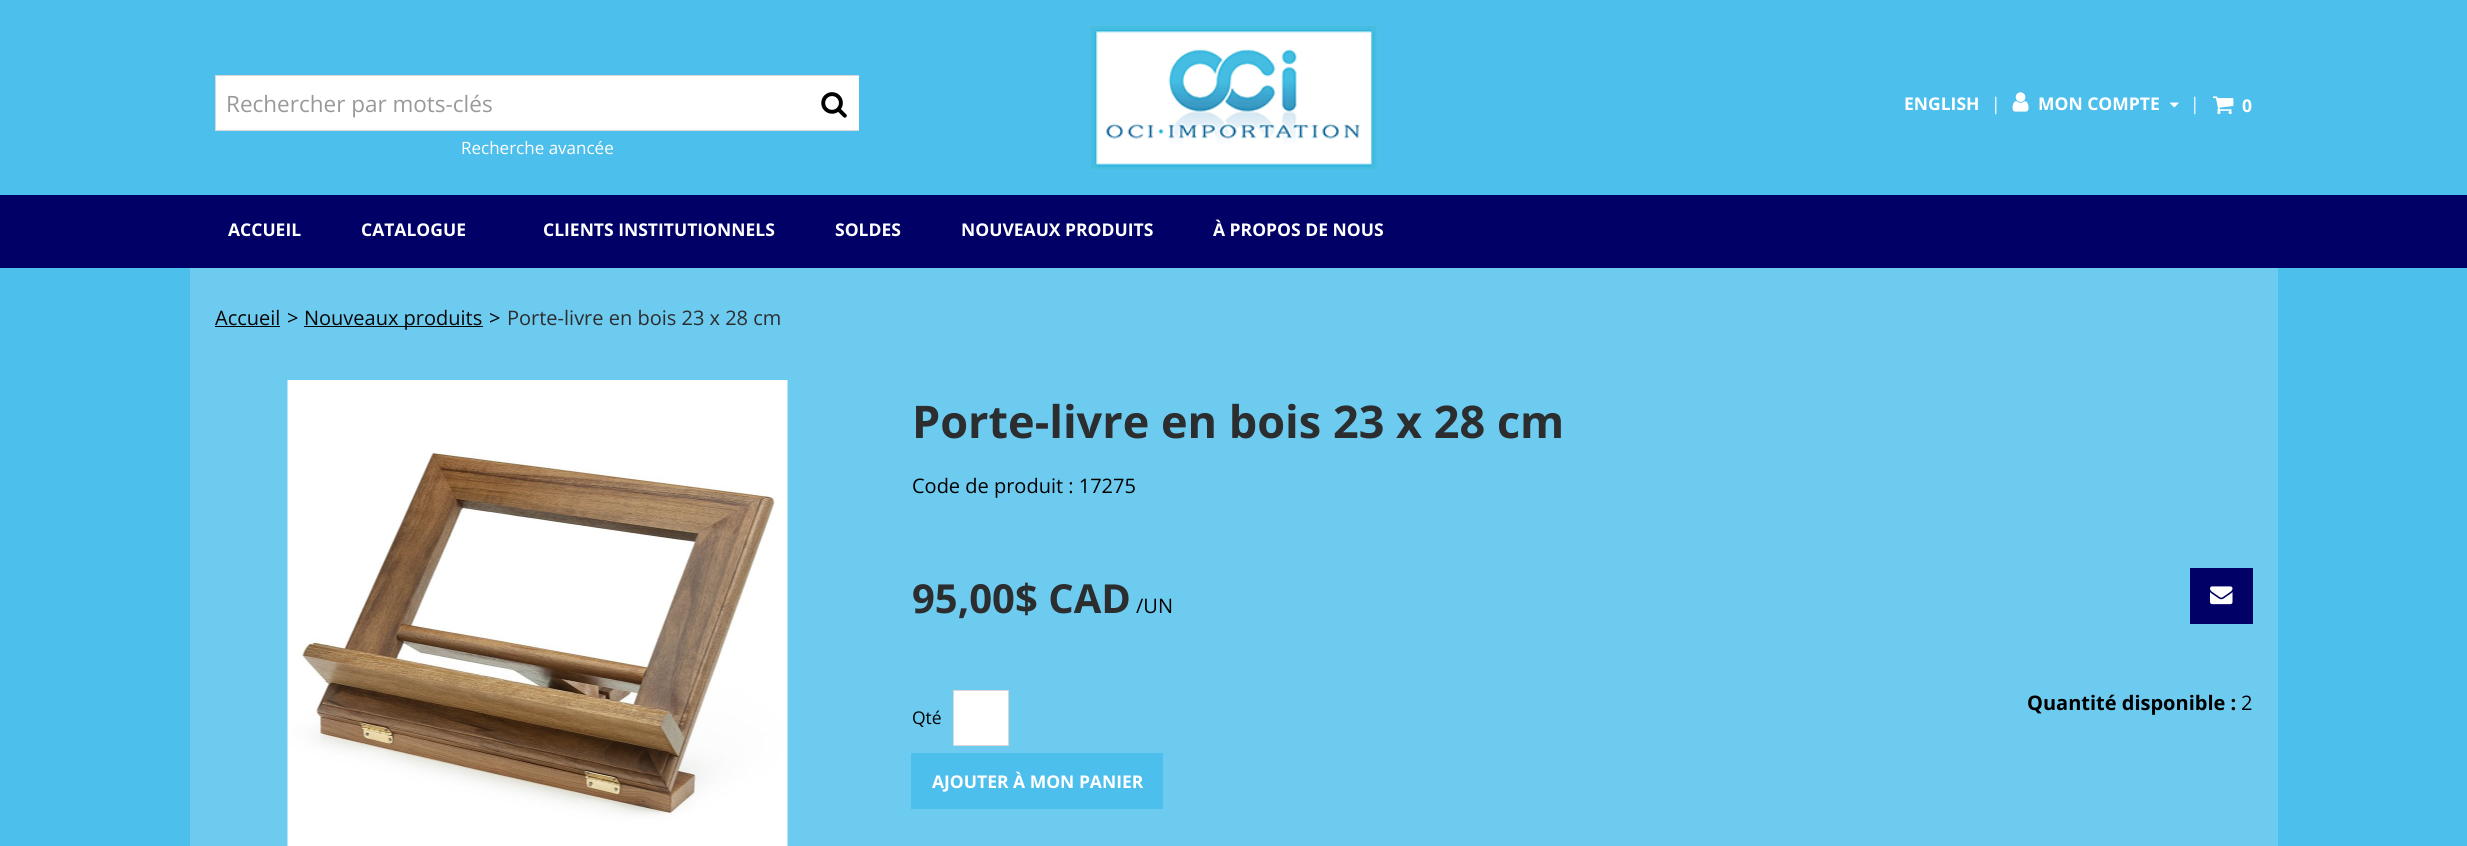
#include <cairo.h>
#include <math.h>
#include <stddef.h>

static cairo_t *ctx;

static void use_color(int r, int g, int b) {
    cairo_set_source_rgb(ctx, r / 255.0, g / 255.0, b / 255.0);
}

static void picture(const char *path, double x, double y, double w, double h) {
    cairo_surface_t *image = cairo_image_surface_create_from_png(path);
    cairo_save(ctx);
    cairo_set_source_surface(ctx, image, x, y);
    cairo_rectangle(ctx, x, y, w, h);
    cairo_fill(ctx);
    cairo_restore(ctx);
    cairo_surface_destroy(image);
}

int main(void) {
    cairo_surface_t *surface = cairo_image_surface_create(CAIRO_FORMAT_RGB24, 2467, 846);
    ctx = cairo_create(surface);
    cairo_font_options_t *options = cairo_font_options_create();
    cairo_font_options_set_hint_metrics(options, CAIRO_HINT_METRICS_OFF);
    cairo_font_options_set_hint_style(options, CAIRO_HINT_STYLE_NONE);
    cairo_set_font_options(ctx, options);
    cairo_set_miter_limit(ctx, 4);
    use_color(77, 191, 236);
    cairo_paint(ctx);
    use_color(255, 255, 255);
    cairo_rectangle(ctx, 216, 76, 643, 54);
    cairo_fill(ctx);
    use_color(215, 215, 215);
    cairo_rectangle(ctx, 215, 75, 644, 1);
    cairo_fill(ctx);
    cairo_rectangle(ctx, 215, 130, 644, 1);
    cairo_fill(ctx);
    cairo_rectangle(ctx, 215, 75, 1, 56);
    cairo_fill(ctx);
    cairo_select_font_face(ctx, "Open Sans", CAIRO_FONT_SLANT_NORMAL, CAIRO_FONT_WEIGHT_NORMAL);
    cairo_set_font_size(ctx, 22.5);
    use_color(153, 153, 153);
    cairo_move_to(ctx, 226, 112);
    cairo_show_text(ctx, "Rechercher par mots-clés");
    picture("img1.png", 821, 92, 26, 26);
    cairo_set_font_size(ctx, 17);
    use_color(255, 255, 255);
    cairo_move_to(ctx, 461, 154);
    cairo_show_text(ctx, "Recherche avancée");
    picture("img2.png", 1090, 25, 288, 145);
    cairo_select_font_face(ctx, "Open Sans", CAIRO_FONT_SLANT_NORMAL, CAIRO_FONT_WEIGHT_BOLD);
    cairo_set_font_size(ctx, 17.5);
    cairo_move_to(ctx, 1904, 110);
    cairo_show_text(ctx, "ENGLISH");
    cairo_select_font_face(ctx, "Open Sans", CAIRO_FONT_SLANT_NORMAL, CAIRO_FONT_WEIGHT_NORMAL);
    cairo_move_to(ctx, 1991, 110);
    cairo_show_text(ctx, "|");
    picture("img3.png", 2012, 92, 17, 20);
    cairo_select_font_face(ctx, "Open Sans", CAIRO_FONT_SLANT_NORMAL, CAIRO_FONT_WEIGHT_BOLD);
    cairo_move_to(ctx, 2038, 110);
    cairo_show_text(ctx, "MON COMPTE");
    picture("img4.png", 2170, 102, 9, 6);
    cairo_select_font_face(ctx, "Open Sans", CAIRO_FONT_SLANT_NORMAL, CAIRO_FONT_WEIGHT_NORMAL);
    cairo_move_to(ctx, 2190, 110);
    cairo_show_text(ctx, "|");
    picture("img5.png", 2213, 96, 21, 19);
    cairo_select_font_face(ctx, "Open Sans", CAIRO_FONT_SLANT_NORMAL, CAIRO_FONT_WEIGHT_BOLD);
    cairo_move_to(ctx, 2242, 112);
    cairo_show_text(ctx, "0");
    use_color(0, 0, 102);
    cairo_rectangle(ctx, 0, 195, 2467, 73);
    cairo_fill(ctx);
    use_color(255, 255, 255);
    cairo_move_to(ctx, 228, 236);
    cairo_show_text(ctx, "ACCUEIL");
    cairo_move_to(ctx, 361, 236);
    cairo_show_text(ctx, "CATALOGUE");
    cairo_move_to(ctx, 543, 236);
    cairo_show_text(ctx, "CLIENTS INSTITUTIONNELS");
    cairo_move_to(ctx, 835, 236);
    cairo_show_text(ctx, "SOLDES");
    cairo_move_to(ctx, 961, 236);
    cairo_show_text(ctx, "NOUVEAUX PRODUITS");
    cairo_move_to(ctx, 1213, 236);
    cairo_show_text(ctx, "À PROPOS DE NOUS");
    use_color(110, 203, 240);
    cairo_rectangle(ctx, 190, 268, 2088, 578);
    cairo_fill(ctx);
    cairo_select_font_face(ctx, "Open Sans", CAIRO_FONT_SLANT_NORMAL, CAIRO_FONT_WEIGHT_NORMAL);
    cairo_set_font_size(ctx, 20);
    use_color(6, 6, 6);
    cairo_move_to(ctx, 215, 325);
    cairo_show_text(ctx, "Accueil");
    cairo_rectangle(ctx, 215, 326, 65, 1);
    cairo_fill(ctx);
    use_color(0, 0, 0);
    cairo_move_to(ctx, 287, 325);
    cairo_show_text(ctx, ">");
    use_color(6, 6, 6);
    cairo_rectangle(ctx, 304, 326, 179, 1);
    cairo_fill(ctx);
    cairo_move_to(ctx, 304, 325);
    cairo_show_text(ctx, "Nouveaux produits");
    use_color(0, 0, 0);
    cairo_move_to(ctx, 489, 325);
    cairo_show_text(ctx, ">");
    use_color(43, 45, 47);
    cairo_move_to(ctx, 507, 325);
    cairo_show_text(ctx, "Porte-livre en bois 23 x 28 cm");
    picture("img6.png", 287, 380, 501, 466);
    cairo_select_font_face(ctx, "Open Sans", CAIRO_FONT_SLANT_NORMAL, CAIRO_FONT_WEIGHT_BOLD);
    cairo_set_font_size(ctx, 45);
    cairo_move_to(ctx, 912, 438);
    cairo_show_text(ctx, "Porte-livre en bois 23 x 28 cm");
    cairo_select_font_face(ctx, "Open Sans", CAIRO_FONT_SLANT_NORMAL, CAIRO_FONT_WEIGHT_NORMAL);
    cairo_set_font_size(ctx, 20);
    use_color(0, 0, 0);
    cairo_move_to(ctx, 912, 493);
    cairo_show_text(ctx, "Code de produit : 17275");
    cairo_select_font_face(ctx, "Open Sans", CAIRO_FONT_SLANT_NORMAL, CAIRO_FONT_WEIGHT_BOLD);
    cairo_set_font_size(ctx, 40);
    use_color(43, 45, 47);
    cairo_move_to(ctx, 912, 613);
    cairo_show_text(ctx, "95,00$ CAD");
    cairo_select_font_face(ctx, "Open Sans", CAIRO_FONT_SLANT_NORMAL, CAIRO_FONT_WEIGHT_NORMAL);
    cairo_set_font_size(ctx, 20);
    use_color(0, 0, 0);
    cairo_move_to(ctx, 1136, 613);
    cairo_show_text(ctx, "/UN");
    use_color(0, 0, 102);
    cairo_rectangle(ctx, 2190, 568, 63, 56);
    cairo_fill(ctx);
    picture("img7.png", 2210, 586, 23, 19);
    cairo_select_font_face(ctx, "Open Sans", CAIRO_FONT_SLANT_NORMAL, CAIRO_FONT_WEIGHT_BOLD);
    use_color(0, 0, 0);
    cairo_move_to(ctx, 2027, 710);
    cairo_show_text(ctx, "Quantité disponible :");
    cairo_select_font_face(ctx, "Open Sans", CAIRO_FONT_SLANT_NORMAL, CAIRO_FONT_WEIGHT_NORMAL);
    cairo_move_to(ctx, 2241, 710);
    cairo_show_text(ctx, "2");
    cairo_set_font_size(ctx, 17.5);
    cairo_move_to(ctx, 912, 724);
    cairo_show_text(ctx, "Qté");
    use_color(255, 255, 255);
    cairo_rectangle(ctx, 953.5, 690.5, 55, 55);
    cairo_fill_preserve(ctx);
    use_color(215, 215, 215);
    cairo_set_line_width(ctx, 1);
    cairo_stroke(ctx);
    use_color(77, 191, 236);
    cairo_rectangle(ctx, 911, 753, 252, 56);
    cairo_fill(ctx);
    cairo_select_font_face(ctx, "Open Sans", CAIRO_FONT_SLANT_NORMAL, CAIRO_FONT_WEIGHT_BOLD);
    use_color(255, 255, 255);
    cairo_move_to(ctx, 932, 788);
    cairo_show_text(ctx, "AJOUTER À MON PANIER");
    cairo_surface_write_to_png(surface, "result.png");
    cairo_font_options_destroy(options);
    cairo_destroy(ctx);
    cairo_surface_destroy(surface);
    return 0;
}
